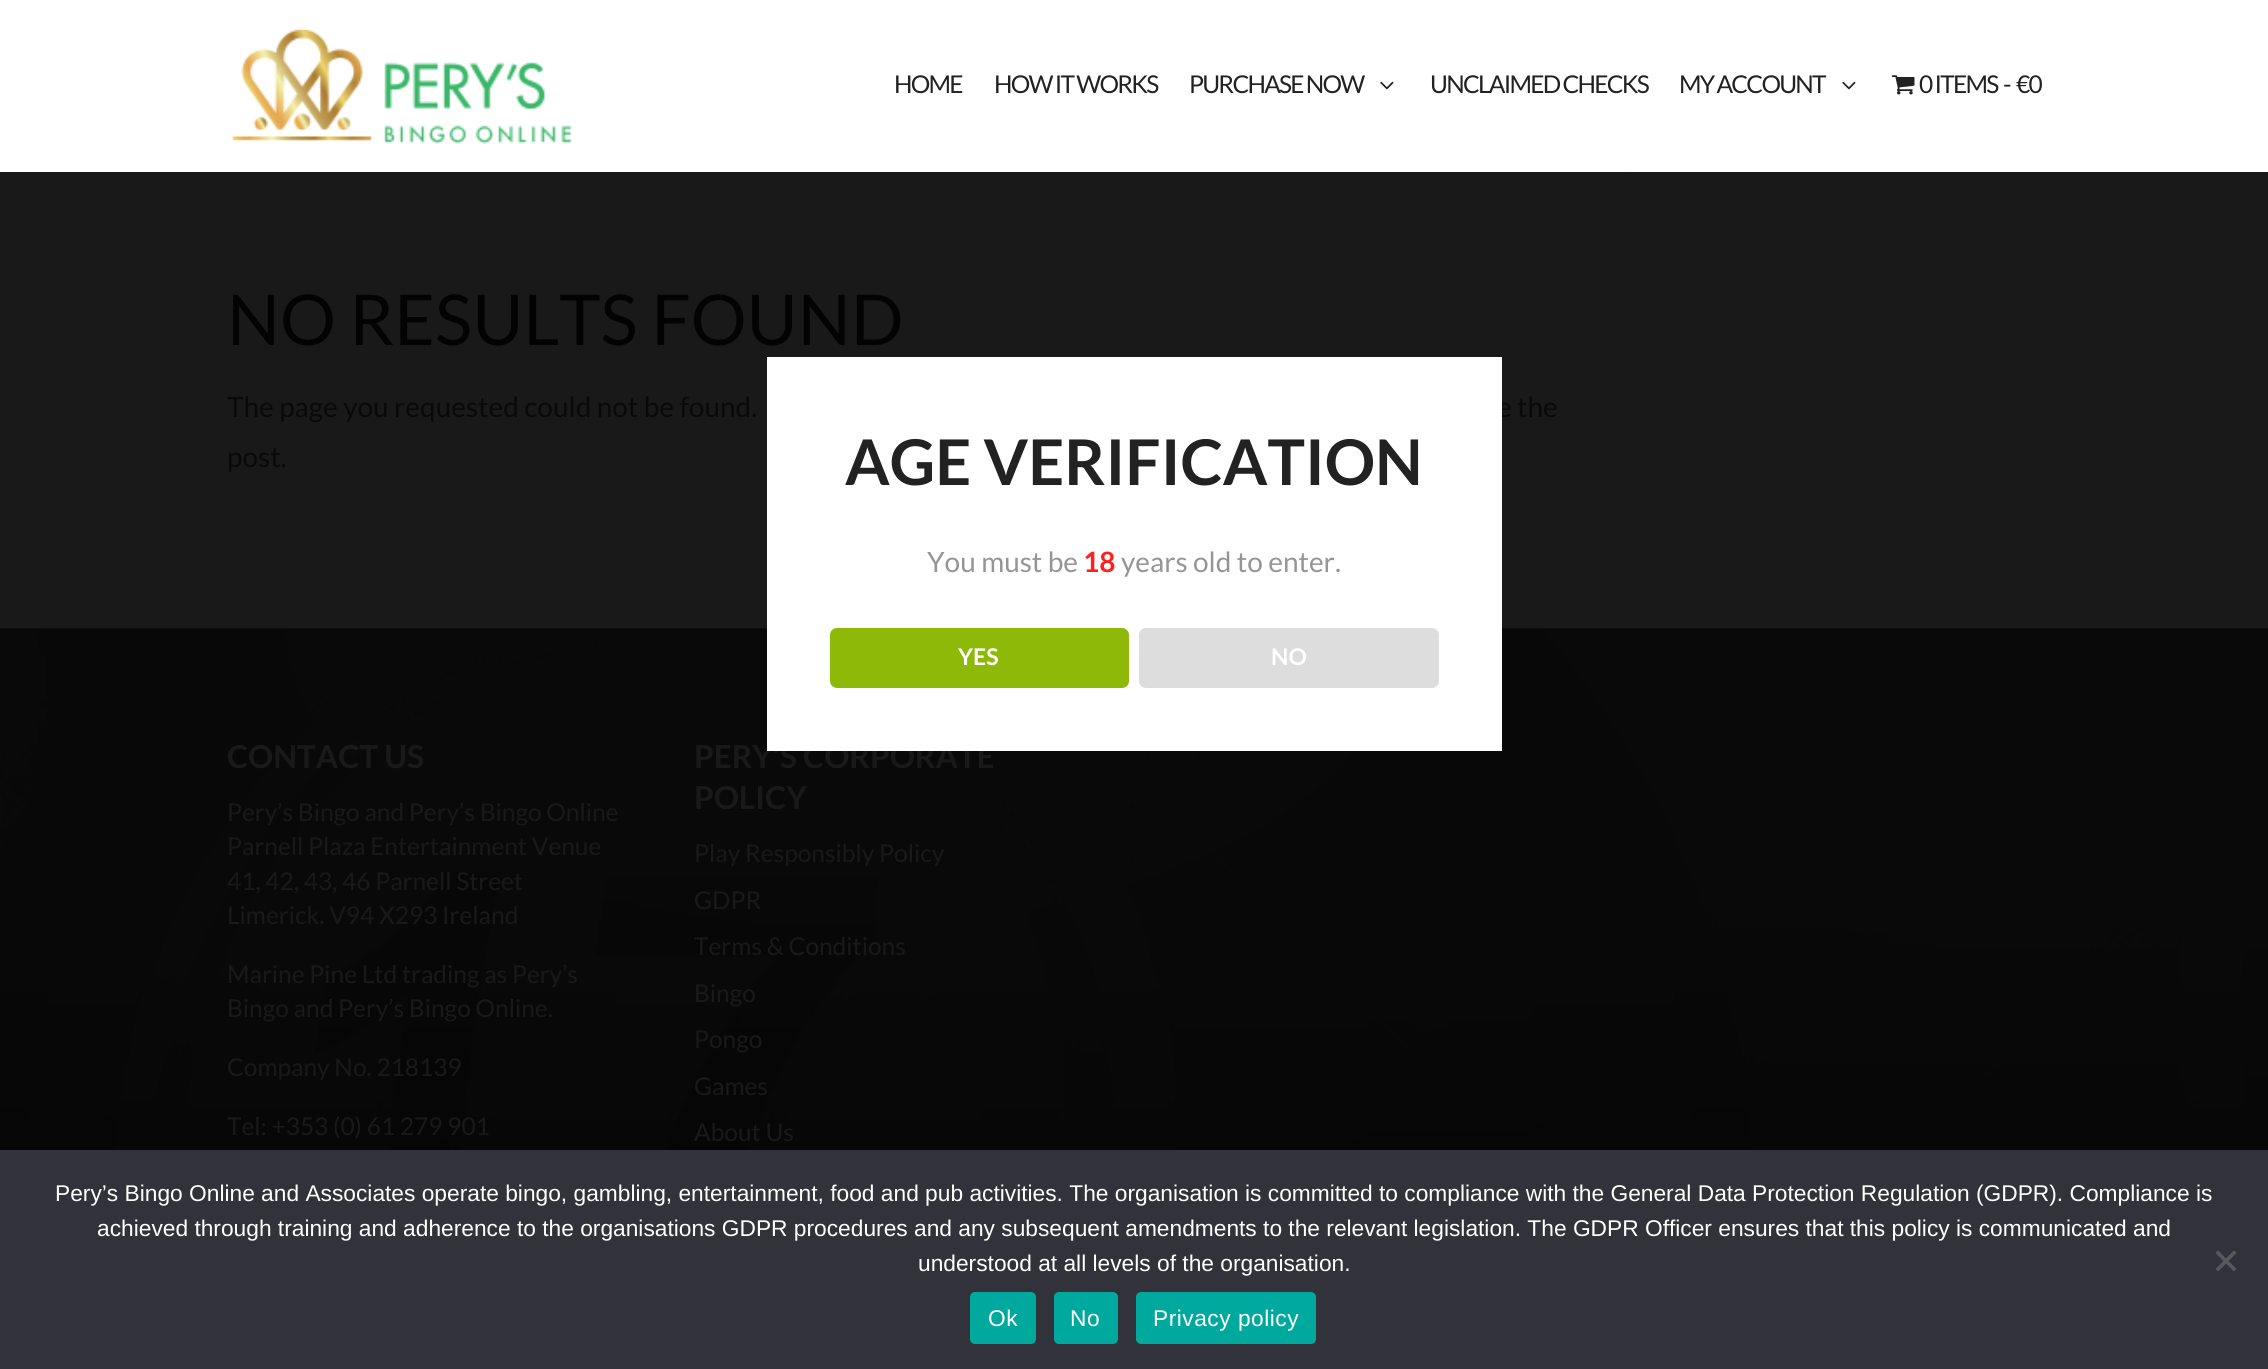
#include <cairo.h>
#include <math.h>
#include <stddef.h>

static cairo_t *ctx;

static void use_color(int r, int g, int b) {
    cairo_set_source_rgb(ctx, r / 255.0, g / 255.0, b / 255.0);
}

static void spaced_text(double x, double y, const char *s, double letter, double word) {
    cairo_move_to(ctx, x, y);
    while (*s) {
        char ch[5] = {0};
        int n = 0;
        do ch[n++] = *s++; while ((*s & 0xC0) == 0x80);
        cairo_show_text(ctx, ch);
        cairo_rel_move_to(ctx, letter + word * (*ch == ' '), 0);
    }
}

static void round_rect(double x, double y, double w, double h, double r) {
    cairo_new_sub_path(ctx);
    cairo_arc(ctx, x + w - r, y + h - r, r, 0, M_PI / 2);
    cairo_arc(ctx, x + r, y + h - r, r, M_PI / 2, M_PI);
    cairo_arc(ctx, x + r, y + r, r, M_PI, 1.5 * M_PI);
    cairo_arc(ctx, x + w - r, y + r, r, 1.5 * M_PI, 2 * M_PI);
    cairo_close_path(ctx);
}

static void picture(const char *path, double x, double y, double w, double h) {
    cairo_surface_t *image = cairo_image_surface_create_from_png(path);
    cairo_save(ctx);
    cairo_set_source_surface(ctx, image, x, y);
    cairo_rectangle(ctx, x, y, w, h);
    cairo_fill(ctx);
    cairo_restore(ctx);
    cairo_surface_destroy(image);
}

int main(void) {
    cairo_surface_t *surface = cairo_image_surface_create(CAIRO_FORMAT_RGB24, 2268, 1369);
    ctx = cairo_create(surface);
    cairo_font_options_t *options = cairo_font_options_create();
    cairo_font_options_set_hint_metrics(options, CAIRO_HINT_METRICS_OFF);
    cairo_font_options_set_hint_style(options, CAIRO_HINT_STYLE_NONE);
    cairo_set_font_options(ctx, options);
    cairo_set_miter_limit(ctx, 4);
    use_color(25, 25, 25);
    cairo_paint(ctx);
    use_color(255, 255, 255);
    cairo_rectangle(ctx, 0, 0, 2268, 172);
    cairo_fill(ctx);
    picture("img1.png", 232, 29, 341, 115);
    cairo_select_font_face(ctx, "Lato", CAIRO_FONT_SLANT_NORMAL, CAIRO_FONT_WEIGHT_NORMAL);
    cairo_set_font_size(ctx, 24.5);
    use_color(34, 34, 34);
    spaced_text(894, 93, "HOME", -1.75, 0);
    spaced_text(994, 93, "HOW IT WORKS", -1.75, 0);
    spaced_text(1189, 93, "PURCHASE NOW", -1.75, 0);
    picture("img2.png", 1380, 81, 14, 9);
    spaced_text(1430, 93, "UNCLAIMED CHECKS", -1.75, 0);
    spaced_text(1679, 93, "MY ACCOUNT", -1.75, 0);
    picture("img2.png", 1842, 81, 14, 9);
    picture("img3.png", 1891, 75, 24, 20);
    spaced_text(1919, 93, "0 ITEMS", -1.75, 0);
    spaced_text(2003, 93, "-", -1.75, 0);
    spaced_text(2016, 93, "€0", -1.75, 0);
    use_color(21, 21, 21);
    cairo_rectangle(ctx, 1628, 172, 2, 1);
    cairo_fill(ctx);
    cairo_set_font_size(ctx, 70);
    use_color(3, 3, 3);
    cairo_move_to(ctx, 227, 345);
    cairo_show_text(ctx, "NO RESULTS FOUND");
    cairo_set_font_size(ctx, 28);
    use_color(9, 9, 9);
    cairo_move_to(ctx, 227, 417);
    cairo_show_text(ctx, "The page you requested could not be found.");
    cairo_move_to(ctx, 1497, 417);
    cairo_show_text(ctx, "e the");
    cairo_move_to(ctx, 227, 467);
    cairo_show_text(ctx, "post.");
    picture("img4.png", 0, 628, 2268, 522);
    cairo_select_font_face(ctx, "Lato", CAIRO_FONT_SLANT_NORMAL, CAIRO_FONT_WEIGHT_BOLD);
    cairo_set_font_size(ctx, 31.5);
    use_color(25, 25, 25);
    cairo_move_to(ctx, 227, 768);
    cairo_show_text(ctx, "CONTACT US");
    cairo_select_font_face(ctx, "Lato", CAIRO_FONT_SLANT_NORMAL, CAIRO_FONT_WEIGHT_NORMAL);
    cairo_set_font_size(ctx, 24.5);
    cairo_move_to(ctx, 227, 821);
    cairo_show_text(ctx, "Pery’s Bingo and Pery’s Bingo Online");
    cairo_move_to(ctx, 227, 855);
    cairo_show_text(ctx, "Parnell Plaza Entertainment Venue");
    cairo_move_to(ctx, 227, 890);
    cairo_show_text(ctx, "41, 42, 43, 46 Parnell Street");
    cairo_move_to(ctx, 227, 924);
    cairo_show_text(ctx, "Limerick. V94 X293 Ireland");
    cairo_move_to(ctx, 227, 983);
    cairo_show_text(ctx, "Marine Pine Ltd trading as Pery’s");
    cairo_move_to(ctx, 227, 1017);
    cairo_show_text(ctx, "Bingo and Pery’s Bingo Online.");
    cairo_move_to(ctx, 227, 1076);
    cairo_show_text(ctx, "Company No. 218139");
    cairo_move_to(ctx, 227, 1135);
    cairo_show_text(ctx, "Tel: +353 (0) 61 279 901");
    cairo_select_font_face(ctx, "Lato", CAIRO_FONT_SLANT_NORMAL, CAIRO_FONT_WEIGHT_BOLD);
    cairo_set_font_size(ctx, 31.5);
    cairo_move_to(ctx, 694, 768);
    cairo_show_text(ctx, "PERY’S CORPORATE");
    cairo_move_to(ctx, 694, 809);
    cairo_show_text(ctx, "POLICY");
    cairo_select_font_face(ctx, "Lato", CAIRO_FONT_SLANT_NORMAL, CAIRO_FONT_WEIGHT_NORMAL);
    cairo_set_font_size(ctx, 24.5);
    cairo_move_to(ctx, 694, 862);
    cairo_show_text(ctx, "Play Responsibly Policy");
    cairo_move_to(ctx, 694, 909);
    cairo_show_text(ctx, "GDPR");
    cairo_move_to(ctx, 694, 955);
    cairo_show_text(ctx, "Terms & Conditions");
    cairo_move_to(ctx, 694, 1002);
    cairo_show_text(ctx, "Bingo");
    cairo_move_to(ctx, 694, 1048);
    cairo_show_text(ctx, "Pongo");
    cairo_move_to(ctx, 694, 1095);
    cairo_show_text(ctx, "Games");
    cairo_move_to(ctx, 694, 1141);
    cairo_show_text(ctx, "About Us");
    use_color(255, 255, 255);
    cairo_rectangle(ctx, 767, 357, 735, 394);
    cairo_fill(ctx);
    cairo_select_font_face(ctx, "Lato", CAIRO_FONT_SLANT_NORMAL, CAIRO_FONT_WEIGHT_BOLD);
    cairo_set_font_size(ctx, 63);
    use_color(34, 34, 34);
    cairo_move_to(ctx, 845, 485);
    cairo_show_text(ctx, "AGE VERIFICATION");
    cairo_select_font_face(ctx, "Lato", CAIRO_FONT_SLANT_NORMAL, CAIRO_FONT_WEIGHT_NORMAL);
    cairo_set_font_size(ctx, 28);
    use_color(149, 149, 149);
    cairo_move_to(ctx, 927, 572);
    cairo_show_text(ctx, "You must be");
    cairo_select_font_face(ctx, "Lato", CAIRO_FONT_SLANT_NORMAL, CAIRO_FONT_WEIGHT_BOLD);
    use_color(255, 31, 31);
    cairo_move_to(ctx, 1083, 572);
    cairo_show_text(ctx, "18");
    cairo_select_font_face(ctx, "Lato", CAIRO_FONT_SLANT_NORMAL, CAIRO_FONT_WEIGHT_NORMAL);
    use_color(149, 149, 149);
    cairo_move_to(ctx, 1121, 572);
    cairo_show_text(ctx, "years old to enter.");
    use_color(142, 185, 8);
    round_rect(830, 628, 299, 60, 7);
    cairo_fill(ctx);
    cairo_select_font_face(ctx, "Lato", CAIRO_FONT_SLANT_NORMAL, CAIRO_FONT_WEIGHT_BOLD);
    cairo_set_font_size(ctx, 23);
    use_color(255, 255, 255);
    cairo_move_to(ctx, 958, 665);
    cairo_show_text(ctx, "YES");
    use_color(221, 221, 221);
    round_rect(1139, 628, 300, 60, 7);
    cairo_fill(ctx);
    use_color(255, 255, 255);
    cairo_move_to(ctx, 1271, 665);
    cairo_show_text(ctx, "NO");
    use_color(50, 50, 58);
    cairo_rectangle(ctx, 0, 1150, 2268, 219);
    cairo_fill(ctx);
    cairo_select_font_face(ctx, "Liberation Sans", CAIRO_FONT_SLANT_NORMAL, CAIRO_FONT_WEIGHT_NORMAL);
    cairo_set_font_size(ctx, 22.75);
    use_color(255, 255, 255);
    cairo_move_to(ctx, 55, 1201);
    cairo_show_text(ctx, "Pery’s Bingo Online and Associates operate bingo, gambling, entertainment, food and pub activities. The organisation is committed to compliance with the General Data Protection Regulation (GDPR). Compliance is");
    cairo_move_to(ctx, 97, 1236);
    cairo_show_text(ctx, "achieved through training and adherence to the organisations GDPR procedures and any subsequent amendments to the relevant legislation. The GDPR Officer ensures that this policy is communicated and");
    cairo_move_to(ctx, 918, 1271);
    cairo_show_text(ctx, "understood at all levels of the organisation.");
    use_color(89, 89, 93);
    cairo_new_path(ctx);
    cairo_move_to(ctx, 2234, 1250.5);
    cairo_line_to(ctx, 2236.5, 1253);
    cairo_line_to(ctx, 2218, 1271.5);
    cairo_line_to(ctx, 2215.5, 1269);
    cairo_close_path(ctx);
    cairo_fill(ctx);
    cairo_new_path(ctx);
    cairo_move_to(ctx, 2215.5, 1253);
    cairo_line_to(ctx, 2218, 1250.5);
    cairo_line_to(ctx, 2236.5, 1269);
    cairo_line_to(ctx, 2234, 1271.5);
    cairo_close_path(ctx);
    cairo_fill(ctx);
    use_color(0, 169, 157);
    round_rect(970, 1292, 66, 52, 5);
    cairo_fill(ctx);
    use_color(255, 255, 255);
    spaced_text(988, 1326, "Ok", 0.5, 0);
    use_color(0, 169, 157);
    round_rect(1054, 1292, 64, 52, 5);
    cairo_fill(ctx);
    use_color(255, 255, 255);
    spaced_text(1070, 1326, "No", 0.5, 0);
    use_color(0, 169, 157);
    round_rect(1136, 1292, 180, 52, 5);
    cairo_fill(ctx);
    use_color(255, 255, 255);
    spaced_text(1153, 1326, "Privacy policy", 0.5, 0);
    cairo_surface_write_to_png(surface, "result.png");
    cairo_font_options_destroy(options);
    cairo_destroy(ctx);
    cairo_surface_destroy(surface);
    return 0;
}
